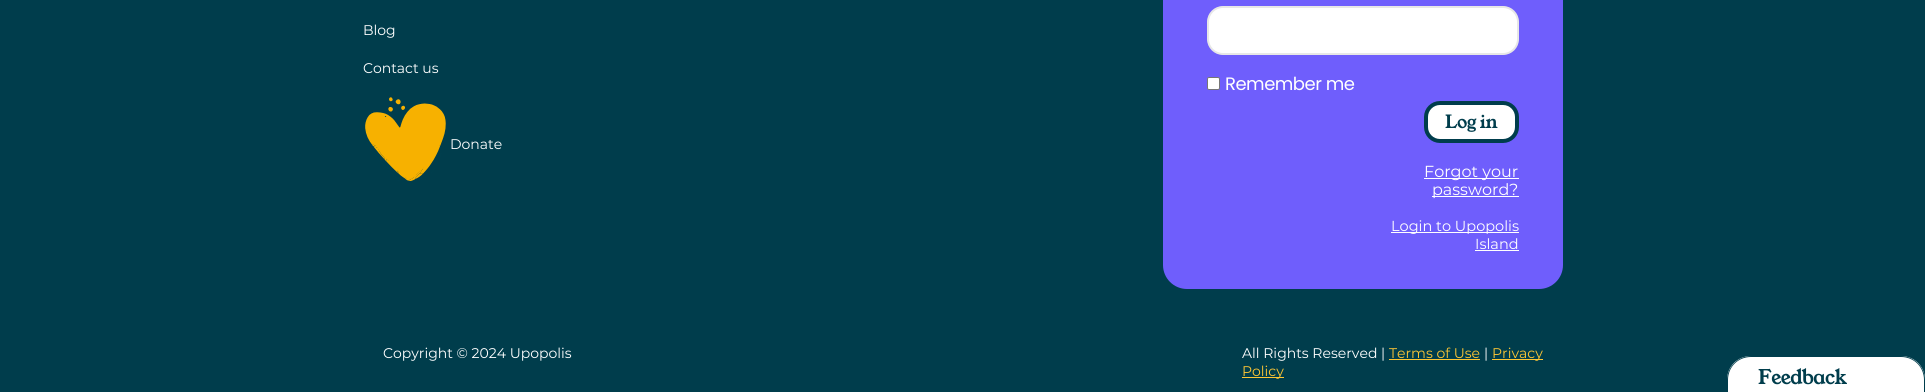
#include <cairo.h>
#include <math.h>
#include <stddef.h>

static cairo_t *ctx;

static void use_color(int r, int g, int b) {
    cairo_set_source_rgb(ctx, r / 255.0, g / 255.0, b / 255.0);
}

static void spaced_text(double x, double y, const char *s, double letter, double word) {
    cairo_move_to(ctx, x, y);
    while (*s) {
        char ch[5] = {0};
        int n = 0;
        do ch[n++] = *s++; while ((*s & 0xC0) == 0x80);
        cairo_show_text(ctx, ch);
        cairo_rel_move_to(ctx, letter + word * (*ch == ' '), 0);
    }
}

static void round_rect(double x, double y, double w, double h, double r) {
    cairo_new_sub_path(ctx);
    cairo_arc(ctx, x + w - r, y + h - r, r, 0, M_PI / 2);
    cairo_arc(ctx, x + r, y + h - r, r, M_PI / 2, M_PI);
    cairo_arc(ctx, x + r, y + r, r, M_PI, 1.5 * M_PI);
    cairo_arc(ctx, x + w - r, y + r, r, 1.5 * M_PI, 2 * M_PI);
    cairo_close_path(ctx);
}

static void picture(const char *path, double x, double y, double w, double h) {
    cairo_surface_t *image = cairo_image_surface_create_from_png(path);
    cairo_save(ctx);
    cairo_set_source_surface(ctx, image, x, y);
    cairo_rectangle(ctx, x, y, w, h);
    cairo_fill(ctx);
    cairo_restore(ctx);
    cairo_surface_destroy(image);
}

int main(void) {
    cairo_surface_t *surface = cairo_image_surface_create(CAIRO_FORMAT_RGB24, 1925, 392);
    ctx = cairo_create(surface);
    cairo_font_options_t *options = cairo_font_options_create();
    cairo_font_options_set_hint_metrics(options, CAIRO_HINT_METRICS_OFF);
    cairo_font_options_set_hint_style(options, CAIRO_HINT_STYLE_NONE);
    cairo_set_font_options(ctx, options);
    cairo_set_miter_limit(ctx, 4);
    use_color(0, 61, 76);
    cairo_paint(ctx);
    cairo_select_font_face(ctx, "Montserrat", CAIRO_FONT_SLANT_NORMAL, CAIRO_FONT_WEIGHT_NORMAL);
    cairo_set_font_size(ctx, 14);
    use_color(255, 255, 255);
    cairo_move_to(ctx, 363, 35);
    cairo_show_text(ctx, "Blog");
    cairo_move_to(ctx, 363, 73);
    cairo_show_text(ctx, "Contact us");
    picture("img1.png", 365, 97, 81, 84);
    cairo_move_to(ctx, 450, 149);
    cairo_show_text(ctx, "Donate");
    use_color(111, 94, 252);
    round_rect(1163, -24, 400, 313, 24);
    cairo_fill(ctx);
    use_color(255, 255, 255);
    round_rect(1208, 7, 310, 47, 15);
    cairo_fill_preserve(ctx);
    use_color(231, 231, 231);
    cairo_stroke(ctx);
    use_color(255, 255, 255);
    round_rect(1207.5, 77.5, 12, 12, 1.5);
    cairo_fill_preserve(ctx);
    use_color(118, 118, 118);
    cairo_set_line_width(ctx, 1);
    cairo_stroke(ctx);
    cairo_select_font_face(ctx, "Poppins", CAIRO_FONT_SLANT_NORMAL, CAIRO_FONT_WEIGHT_NORMAL);
    cairo_set_font_size(ctx, 18);
    use_color(255, 255, 255);
    spaced_text(1225, 90, "Remember me", -0.5, 0);
    round_rect(1426, 103, 91, 38, 14);
    cairo_fill_preserve(ctx);
    use_color(0, 61, 76);
    cairo_set_line_width(ctx, 4);
    cairo_stroke(ctx);
    cairo_select_font_face(ctx, "Young Serif", CAIRO_FONT_SLANT_NORMAL, CAIRO_FONT_WEIGHT_NORMAL);
    spaced_text(1445, 128, "Log in", -0.5, 0);
    use_color(255, 255, 255);
    cairo_rectangle(ctx, 1424, 178, 95, 1);
    cairo_fill(ctx);
    cairo_select_font_face(ctx, "Montserrat", CAIRO_FONT_SLANT_NORMAL, CAIRO_FONT_WEIGHT_NORMAL);
    cairo_set_font_size(ctx, 16);
    cairo_move_to(ctx, 1424, 177);
    cairo_show_text(ctx, "Forgot your");
    cairo_rectangle(ctx, 1432, 196, 87, 1);
    cairo_fill(ctx);
    cairo_move_to(ctx, 1432, 195);
    cairo_show_text(ctx, "password?");
    cairo_rectangle(ctx, 1391, 232, 128, 1);
    cairo_fill(ctx);
    cairo_set_font_size(ctx, 14.5);
    cairo_move_to(ctx, 1391, 231);
    cairo_show_text(ctx, "Login to Upopolis");
    cairo_move_to(ctx, 1475, 249);
    cairo_show_text(ctx, "Island");
    cairo_rectangle(ctx, 1475, 250, 44, 1);
    cairo_fill(ctx);
    cairo_set_font_size(ctx, 14);
    cairo_move_to(ctx, 383, 358);
    cairo_show_text(ctx, "Copyright © 2024 Upopolis");
    cairo_move_to(ctx, 1242, 358);
    cairo_show_text(ctx, "All Rights Reserved |");
    use_color(254, 198, 52);
    cairo_move_to(ctx, 1389, 358);
    cairo_show_text(ctx, "Terms of Use");
    cairo_rectangle(ctx, 1389, 359, 91, 1);
    cairo_fill(ctx);
    use_color(255, 255, 255);
    cairo_move_to(ctx, 1484, 358);
    cairo_show_text(ctx, "|");
    use_color(254, 198, 52);
    cairo_rectangle(ctx, 1492, 359, 51, 1);
    cairo_fill(ctx);
    cairo_move_to(ctx, 1492, 358);
    cairo_show_text(ctx, "Privacy");
    cairo_rectangle(ctx, 1242, 377, 42, 1);
    cairo_fill(ctx);
    cairo_move_to(ctx, 1242, 376);
    cairo_show_text(ctx, "Policy");
    use_color(255, 255, 255);
    cairo_new_path(ctx);
    cairo_move_to(ctx, 1751, 356);
    cairo_line_to(ctx, 1901, 356);
    cairo_curve_to(ctx, 1914.5, 356, 1925, 366.5, 1925, 380);
    cairo_line_to(ctx, 1925, 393);
    cairo_line_to(ctx, 1727, 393);
    cairo_line_to(ctx, 1727, 380);
    cairo_curve_to(ctx, 1727, 366.5, 1737.5, 356, 1751, 356);
    cairo_close_path(ctx);
    cairo_fill(ctx);
    use_color(0, 61, 76);
    cairo_set_fill_rule(ctx, CAIRO_FILL_RULE_EVEN_ODD);
    cairo_new_path(ctx);
    cairo_move_to(ctx, 1751, 356);
    cairo_line_to(ctx, 1901, 356);
    cairo_curve_to(ctx, 1914, 356, 1925, 367, 1925, 380);
    cairo_line_to(ctx, 1925, 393);
    cairo_line_to(ctx, 1727, 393);
    cairo_line_to(ctx, 1727, 380);
    cairo_curve_to(ctx, 1727, 367, 1738, 356, 1751, 356);
    cairo_close_path(ctx);
    cairo_move_to(ctx, 1751, 357);
    cairo_line_to(ctx, 1901, 357);
    cairo_curve_to(ctx, 1914, 357, 1924, 367, 1924, 380);
    cairo_line_to(ctx, 1924, 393);
    cairo_line_to(ctx, 1728, 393);
    cairo_line_to(ctx, 1728, 380);
    cairo_curve_to(ctx, 1728, 367, 1738, 357, 1751, 357);
    cairo_close_path(ctx);
    cairo_fill(ctx);
    cairo_select_font_face(ctx, "Young Serif", CAIRO_FONT_SLANT_NORMAL, CAIRO_FONT_WEIGHT_NORMAL);
    cairo_set_font_size(ctx, 20);
    spaced_text(1758, 384, "Feedback", -0.75, 0);
    cairo_surface_write_to_png(surface, "result.png");
    cairo_font_options_destroy(options);
    cairo_destroy(ctx);
    cairo_surface_destroy(surface);
    return 0;
}
